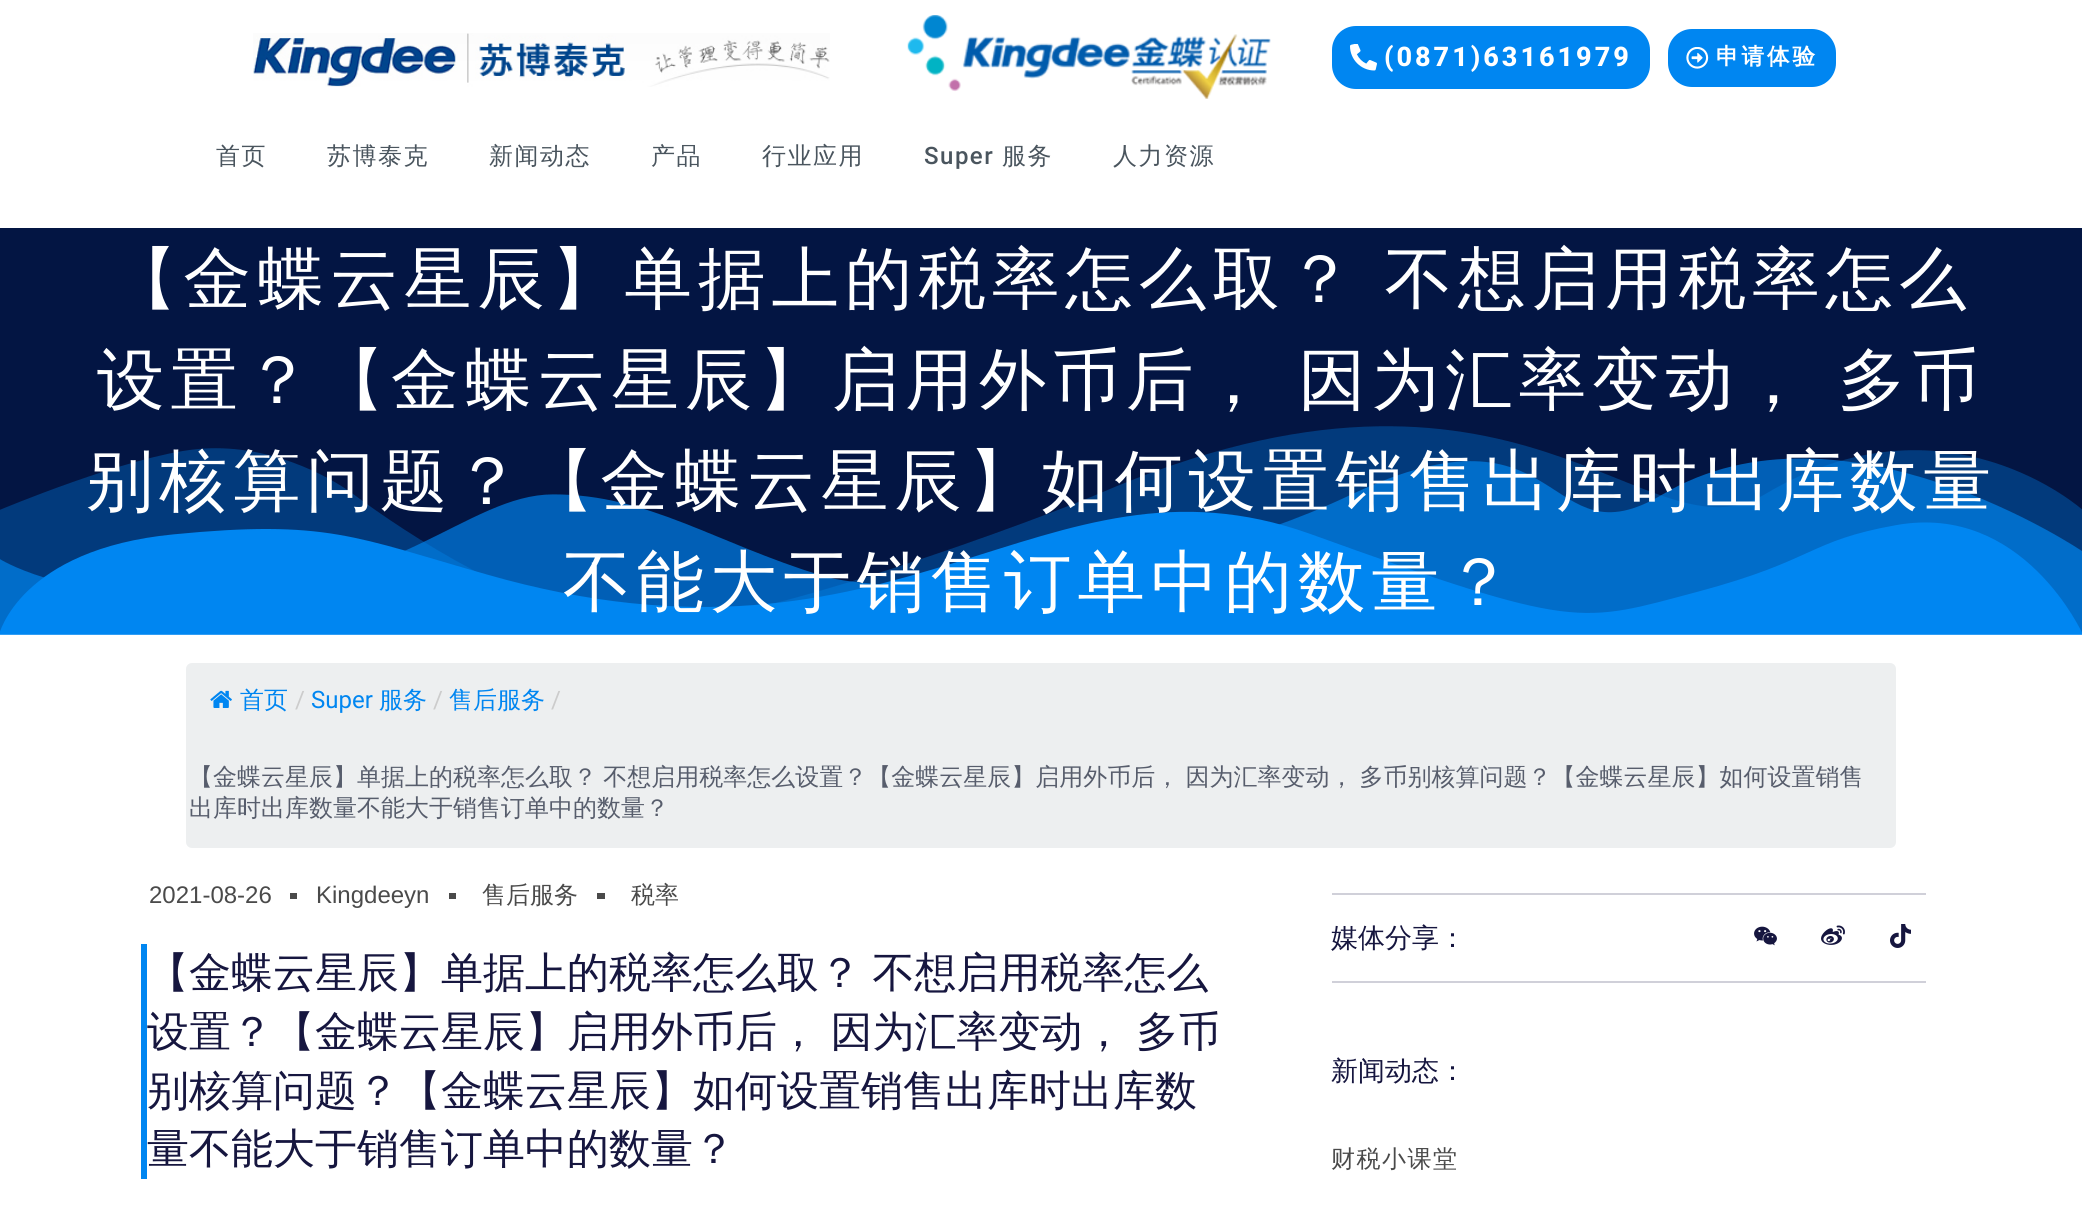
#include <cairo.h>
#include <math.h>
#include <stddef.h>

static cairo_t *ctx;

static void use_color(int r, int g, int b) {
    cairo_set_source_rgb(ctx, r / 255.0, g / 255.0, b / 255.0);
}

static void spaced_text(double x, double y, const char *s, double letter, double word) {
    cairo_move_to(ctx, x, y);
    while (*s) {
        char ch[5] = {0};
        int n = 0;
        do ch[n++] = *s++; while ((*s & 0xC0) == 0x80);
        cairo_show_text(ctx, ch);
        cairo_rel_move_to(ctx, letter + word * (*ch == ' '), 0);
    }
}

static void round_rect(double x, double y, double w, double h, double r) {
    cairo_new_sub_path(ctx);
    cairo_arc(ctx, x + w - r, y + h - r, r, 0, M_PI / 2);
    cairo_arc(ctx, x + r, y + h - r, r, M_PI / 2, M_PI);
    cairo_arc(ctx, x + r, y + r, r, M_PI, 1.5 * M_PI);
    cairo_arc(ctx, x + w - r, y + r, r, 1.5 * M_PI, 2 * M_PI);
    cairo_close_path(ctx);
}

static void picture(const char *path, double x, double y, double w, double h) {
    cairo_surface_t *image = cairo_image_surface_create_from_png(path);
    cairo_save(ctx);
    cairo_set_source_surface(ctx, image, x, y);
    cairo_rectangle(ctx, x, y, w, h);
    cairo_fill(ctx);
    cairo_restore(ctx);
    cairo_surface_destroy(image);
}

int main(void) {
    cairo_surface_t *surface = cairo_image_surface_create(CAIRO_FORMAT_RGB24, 2082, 1211);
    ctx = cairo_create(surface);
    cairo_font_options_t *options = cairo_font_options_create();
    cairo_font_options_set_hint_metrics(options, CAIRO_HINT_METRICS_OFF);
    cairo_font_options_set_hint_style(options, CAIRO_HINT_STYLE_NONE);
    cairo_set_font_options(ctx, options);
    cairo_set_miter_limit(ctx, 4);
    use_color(255, 255, 255);
    cairo_paint(ctx);
    picture("img1.png", 253, 33, 577, 54);
    picture("img2.png", 907, 15, 364, 84);
    use_color(0, 134, 241);
    round_rect(1332, 26, 318, 63, 24);
    cairo_fill(ctx);
    picture("img3.png", 1350, 44, 27, 27);
    cairo_select_font_face(ctx, "Roboto ExtraBold", CAIRO_FONT_SLANT_NORMAL, CAIRO_FONT_WEIGHT_NORMAL);
    cairo_set_font_size(ctx, 27);
    use_color(255, 255, 255);
    spaced_text(1384, 66, "(0871)63161979", 3, 0);
    use_color(0, 134, 241);
    round_rect(1668, 29, 168, 58, 24);
    cairo_fill(ctx);
    picture("img4.png", 1686, 47, 23, 22);
    cairo_select_font_face(ctx, "WenQuanYi Zen Hei", CAIRO_FONT_SLANT_NORMAL, CAIRO_FONT_WEIGHT_BOLD);
    cairo_set_font_size(ctx, 22.5);
    use_color(255, 255, 255);
    spaced_text(1716, 64, "申请体验", 3, 0);
    cairo_select_font_face(ctx, "WenQuanYi Zen Hei Medium", CAIRO_FONT_SLANT_NORMAL, CAIRO_FONT_WEIGHT_NORMAL);
    cairo_set_font_size(ctx, 24);
    use_color(74, 85, 94);
    spaced_text(216, 164, "首页", 1.5, 0);
    spaced_text(327, 164, "苏博泰克", 1.5, 0);
    spaced_text(489, 164, "新闻动态", 1.5, 0);
    spaced_text(651, 164, "产品", 1.5, 0);
    spaced_text(762, 164, "行业应用", 1.5, 0);
    cairo_select_font_face(ctx, "Roboto Medium", CAIRO_FONT_SLANT_NORMAL, CAIRO_FONT_WEIGHT_NORMAL);
    spaced_text(924, 164, "Super", 1.5, 0);
    cairo_select_font_face(ctx, "WenQuanYi Zen Hei Medium", CAIRO_FONT_SLANT_NORMAL, CAIRO_FONT_WEIGHT_NORMAL);
    spaced_text(1002, 164, "服务", 1.5, 0);
    spaced_text(1113, 164, "人力资源", 1.5, 0);
    use_color(3, 21, 67);
    cairo_rectangle(ctx, 0, 228, 2082, 405);
    cairo_fill(ctx);
    cairo_set_font_size(ctx, 67.5);
    use_color(255, 255, 255);
    spaced_text(110, 302, "【金蝶云星辰】单据上的税率怎么取？ 不想启用税率怎么", 6, -1);
    spaced_text(97, 403, "设置？【金蝶云星辰】启用外币后， 因为汇率变动， 多币", 6, -1);
    picture("img5.png", 0, 426, 2082, 209);
    spaced_text(86, 504, "别核算问题？【金蝶云星辰】如何设置销售出库时出库数量", 6, 0);
    spaced_text(563, 605, "不能大于销售订单中的数量？", 6, 0);
    use_color(237, 239, 240);
    round_rect(186, 663, 1710, 185, 6);
    cairo_fill(ctx);
    picture("img6.png", 210, 690, 22, 18);
    cairo_set_font_size(ctx, 24);
    use_color(0, 134, 241);
    cairo_move_to(ctx, 240, 708);
    cairo_show_text(ctx, "首页");
    cairo_select_font_face(ctx, "Roboto", CAIRO_FONT_SLANT_NORMAL, CAIRO_FONT_WEIGHT_NORMAL);
    use_color(204, 204, 204);
    cairo_move_to(ctx, 295, 708);
    cairo_show_text(ctx, "/");
    use_color(0, 134, 241);
    cairo_move_to(ctx, 311, 708);
    cairo_show_text(ctx, "Super");
    cairo_select_font_face(ctx, "WenQuanYi Zen Hei Medium", CAIRO_FONT_SLANT_NORMAL, CAIRO_FONT_WEIGHT_NORMAL);
    cairo_move_to(ctx, 379, 708);
    cairo_show_text(ctx, "服务");
    cairo_select_font_face(ctx, "Roboto", CAIRO_FONT_SLANT_NORMAL, CAIRO_FONT_WEIGHT_NORMAL);
    use_color(204, 204, 204);
    cairo_move_to(ctx, 433, 708);
    cairo_show_text(ctx, "/");
    cairo_select_font_face(ctx, "WenQuanYi Zen Hei Medium", CAIRO_FONT_SLANT_NORMAL, CAIRO_FONT_WEIGHT_NORMAL);
    use_color(0, 134, 241);
    cairo_move_to(ctx, 449, 708);
    cairo_show_text(ctx, "售后服务");
    cairo_select_font_face(ctx, "Roboto", CAIRO_FONT_SLANT_NORMAL, CAIRO_FONT_WEIGHT_NORMAL);
    use_color(204, 204, 204);
    cairo_move_to(ctx, 551, 708);
    cairo_show_text(ctx, "/");
    cairo_select_font_face(ctx, "WenQuanYi Zen Hei Medium", CAIRO_FONT_SLANT_NORMAL, CAIRO_FONT_WEIGHT_NORMAL);
    use_color(87, 93, 108);
    spaced_text(189, 785, "【金蝶云星辰】单据上的税率怎么取？ 不想启用税率怎么设置？【金蝶云星辰】启用外币后， 因为汇率变动， 多币别核算问题？【金蝶云星辰】如何设置销售", 0, -1);
    cairo_move_to(ctx, 189, 816);
    cairo_show_text(ctx, "出库时出库数量不能大于销售订单中的数量？");
    cairo_select_font_face(ctx, "Liberation Sans", CAIRO_FONT_SLANT_NORMAL, CAIRO_FONT_WEIGHT_NORMAL);
    use_color(74, 74, 74);
    cairo_move_to(ctx, 149, 903);
    cairo_show_text(ctx, "2021-08-26");
    cairo_rectangle(ctx, 290, 893, 7, 6);
    cairo_fill(ctx);
    cairo_move_to(ctx, 316, 903);
    cairo_show_text(ctx, "Kingdeeyn");
    cairo_rectangle(ctx, 449, 893, 7, 6);
    cairo_fill(ctx);
    cairo_select_font_face(ctx, "WenQuanYi Zen Hei Medium", CAIRO_FONT_SLANT_NORMAL, CAIRO_FONT_WEIGHT_NORMAL);
    cairo_move_to(ctx, 482, 903);
    cairo_show_text(ctx, "售后服务");
    cairo_rectangle(ctx, 597, 893, 8, 6);
    cairo_fill(ctx);
    cairo_move_to(ctx, 631, 903);
    cairo_show_text(ctx, "税率");
    use_color(0, 134, 241);
    cairo_rectangle(ctx, 141, 944, 6, 235);
    cairo_fill(ctx);
    cairo_set_font_size(ctx, 42);
    use_color(22, 22, 63);
    spaced_text(147, 987, "【金蝶云星辰】单据上的税率怎么取？ 不想启用税率怎么", 0, -1);
    spaced_text(147, 1046, "设置？【金蝶云星辰】启用外币后， 因为汇率变动， 多币", 0, -1);
    cairo_move_to(ctx, 147, 1105);
    cairo_show_text(ctx, "别核算问题？【金蝶云星辰】如何设置销售出库时出库数");
    cairo_move_to(ctx, 147, 1163);
    cairo_show_text(ctx, "量不能大于销售订单中的数量？");
    use_color(208, 208, 217);
    cairo_rectangle(ctx, 1332, 893, 594, 2);
    cairo_fill(ctx);
    cairo_rectangle(ctx, 1332, 981, 594, 2);
    cairo_fill(ctx);
    cairo_set_font_size(ctx, 27);
    use_color(22, 22, 63);
    cairo_move_to(ctx, 1331, 947);
    cairo_show_text(ctx, "媒体分享：");
    picture("img7.png", 1754, 926, 23, 20);
    picture("img8.png", 1821, 925, 24, 20);
    picture("img9.png", 1890, 924, 21, 24);
    cairo_move_to(ctx, 1331, 1080);
    cairo_show_text(ctx, "新闻动态：");
    cairo_set_font_size(ctx, 24);
    use_color(74, 74, 74);
    spaced_text(1331, 1167, "财税小课堂", 1.5, 0);
    cairo_surface_write_to_png(surface, "result.png");
    cairo_font_options_destroy(options);
    cairo_destroy(ctx);
    cairo_surface_destroy(surface);
    return 0;
}
